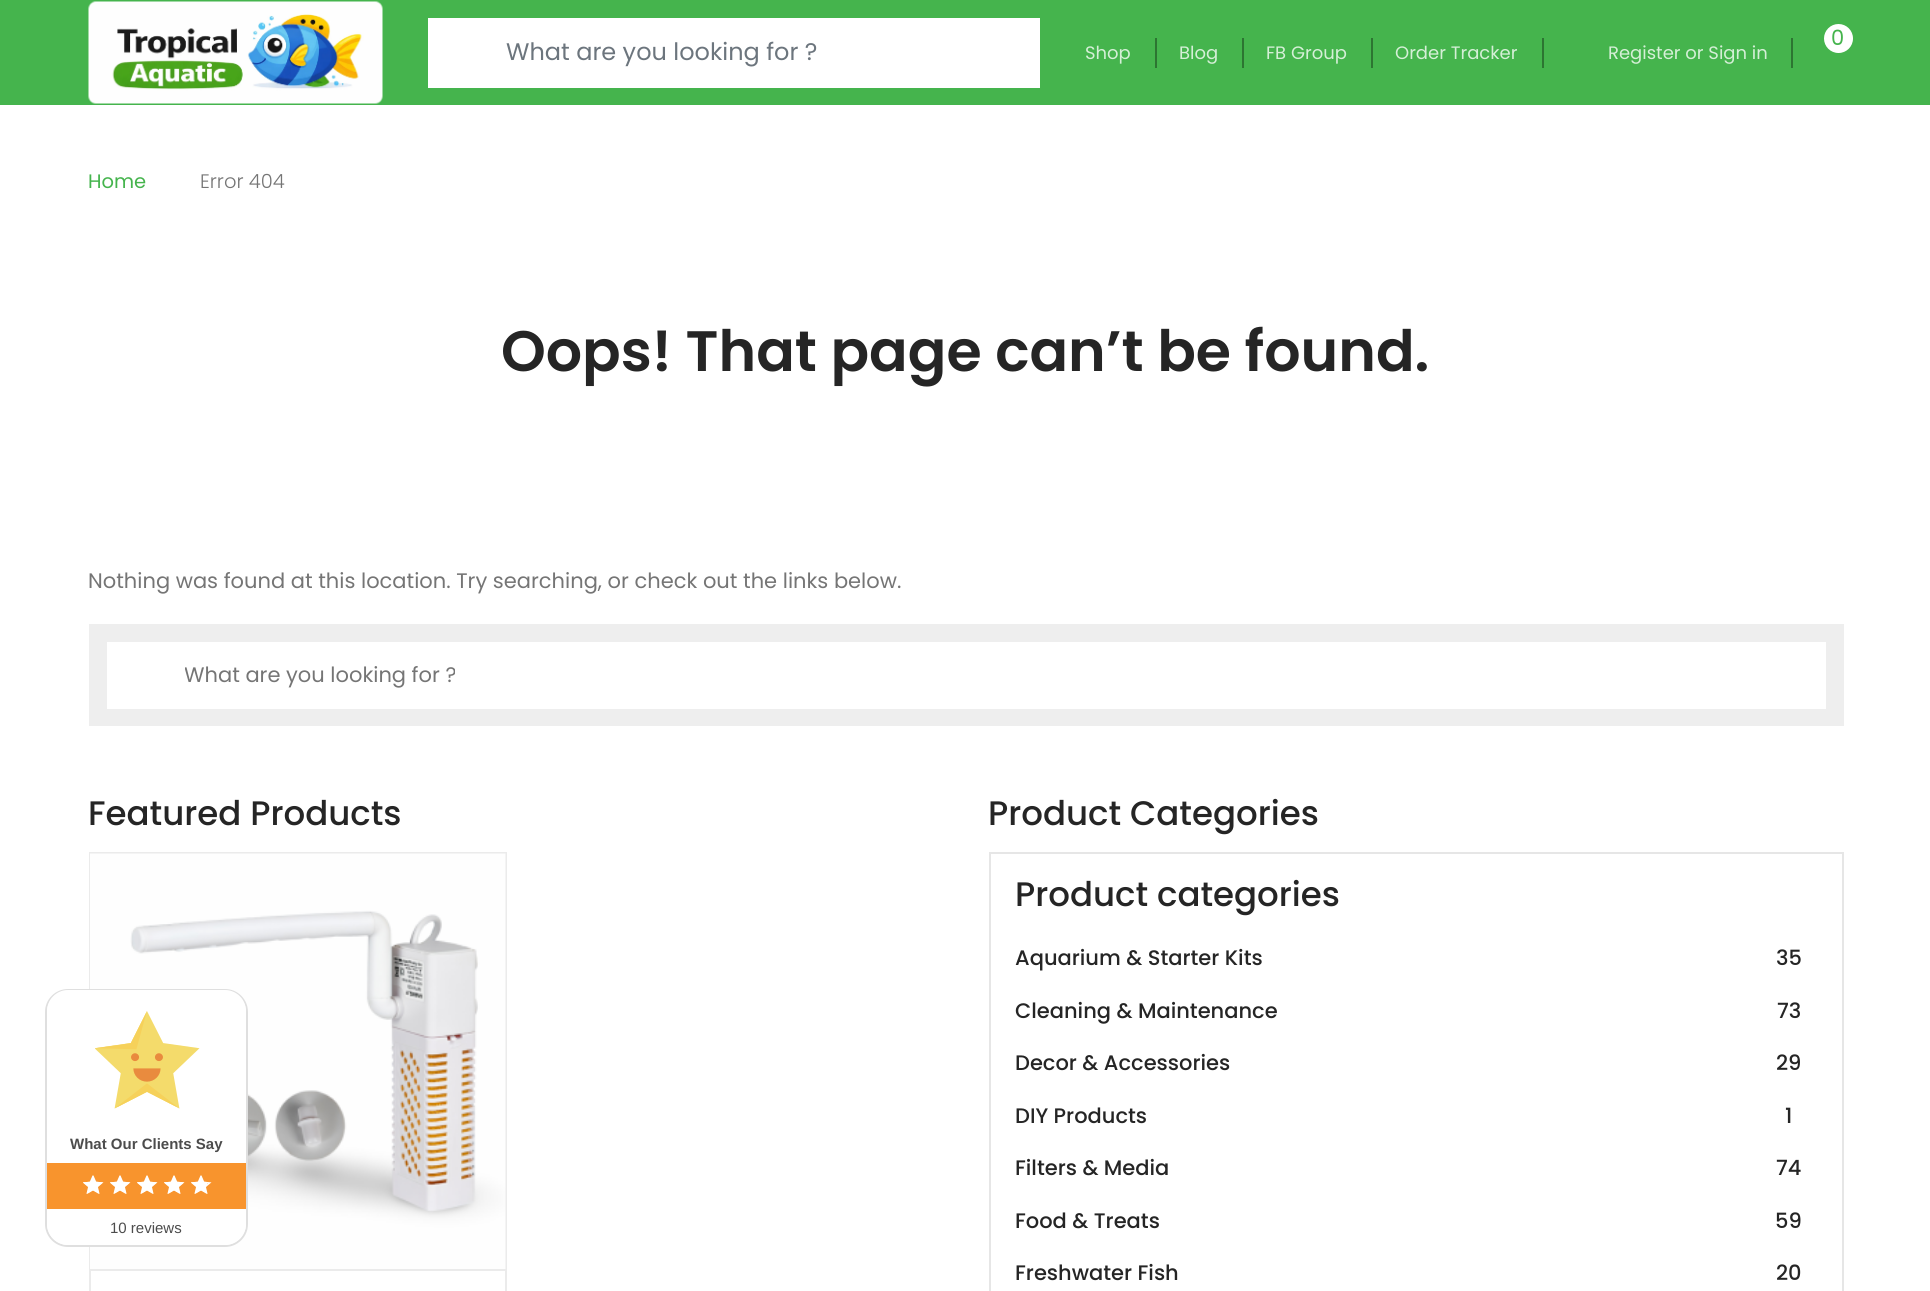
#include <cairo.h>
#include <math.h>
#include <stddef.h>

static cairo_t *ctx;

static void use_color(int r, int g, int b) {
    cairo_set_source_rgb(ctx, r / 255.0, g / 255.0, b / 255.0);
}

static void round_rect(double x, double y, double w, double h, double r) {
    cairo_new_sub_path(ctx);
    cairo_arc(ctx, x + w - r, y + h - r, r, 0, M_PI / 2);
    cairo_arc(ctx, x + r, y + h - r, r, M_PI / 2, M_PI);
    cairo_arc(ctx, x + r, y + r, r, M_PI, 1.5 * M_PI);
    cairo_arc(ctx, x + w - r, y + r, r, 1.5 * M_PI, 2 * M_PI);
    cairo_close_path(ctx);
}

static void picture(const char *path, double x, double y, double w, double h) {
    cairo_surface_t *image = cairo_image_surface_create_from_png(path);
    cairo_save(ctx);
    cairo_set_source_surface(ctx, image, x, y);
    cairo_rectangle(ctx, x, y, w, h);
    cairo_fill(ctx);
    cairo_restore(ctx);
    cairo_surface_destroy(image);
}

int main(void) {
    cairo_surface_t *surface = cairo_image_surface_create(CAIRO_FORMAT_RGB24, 1930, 1291);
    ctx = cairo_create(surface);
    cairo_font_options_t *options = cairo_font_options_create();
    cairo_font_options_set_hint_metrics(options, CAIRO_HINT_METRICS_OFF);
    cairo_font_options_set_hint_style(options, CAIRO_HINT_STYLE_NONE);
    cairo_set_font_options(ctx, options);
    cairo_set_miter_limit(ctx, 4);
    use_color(255, 255, 255);
    cairo_paint(ctx);
    use_color(69, 180, 77);
    cairo_rectangle(ctx, 0, 0, 1930, 105);
    cairo_fill(ctx);
    picture("img1.png", 88, 1, 295, 103);
    use_color(255, 255, 255);
    cairo_rectangle(ctx, 428, 18, 612, 70);
    cairo_fill(ctx);
    cairo_select_font_face(ctx, "Poppins", CAIRO_FONT_SLANT_NORMAL, CAIRO_FONT_WEIGHT_NORMAL);
    cairo_set_font_size(ctx, 24);
    use_color(108, 117, 125);
    cairo_move_to(ctx, 506, 60);
    cairo_show_text(ctx, "What are you looking for ?");
    use_color(45, 117, 50);
    cairo_rectangle(ctx, 1791, 38, 2, 30);
    cairo_fill(ctx);
    use_color(255, 255, 255);
    cairo_arc(ctx, 1838.5, 38.5, 14.5, 0, 2 * M_PI);
    cairo_fill(ctx);
    cairo_set_font_size(ctx, 21);
    use_color(69, 180, 77);
    cairo_move_to(ctx, 1831, 45);
    cairo_show_text(ctx, "0");
    cairo_set_font_size(ctx, 18);
    use_color(213, 239, 215);
    cairo_move_to(ctx, 1085, 59);
    cairo_show_text(ctx, "Shop");
    use_color(45, 117, 50);
    cairo_rectangle(ctx, 1155, 38, 2, 30);
    cairo_fill(ctx);
    use_color(213, 239, 215);
    cairo_move_to(ctx, 1179, 59);
    cairo_show_text(ctx, "Blog");
    use_color(45, 117, 50);
    cairo_rectangle(ctx, 1242, 38, 2, 30);
    cairo_fill(ctx);
    use_color(213, 239, 215);
    cairo_move_to(ctx, 1266, 59);
    cairo_show_text(ctx, "FB Group");
    use_color(45, 117, 50);
    cairo_rectangle(ctx, 1371, 38, 2, 30);
    cairo_fill(ctx);
    use_color(213, 239, 215);
    cairo_move_to(ctx, 1395, 59);
    cairo_show_text(ctx, "Order Tracker");
    use_color(45, 117, 50);
    cairo_rectangle(ctx, 1542, 38, 2, 30);
    cairo_fill(ctx);
    use_color(213, 239, 215);
    cairo_move_to(ctx, 1608, 59);
    cairo_show_text(ctx, "Register or Sign in");
    cairo_set_font_size(ctx, 19.5);
    use_color(69, 180, 77);
    cairo_move_to(ctx, 88, 188);
    cairo_show_text(ctx, "Home");
    cairo_select_font_face(ctx, "Poppins Light", CAIRO_FONT_SLANT_NORMAL, CAIRO_FONT_WEIGHT_NORMAL);
    use_color(117, 117, 117);
    cairo_move_to(ctx, 200, 188);
    cairo_show_text(ctx, "Error 404");
    cairo_select_font_face(ctx, "Poppins SemiBold", CAIRO_FONT_SLANT_NORMAL, CAIRO_FONT_WEIGHT_NORMAL);
    cairo_set_font_size(ctx, 57);
    use_color(37, 37, 37);
    cairo_move_to(ctx, 501, 371);
    cairo_show_text(ctx, "Oops! That page can’t be found.");
    cairo_select_font_face(ctx, "Poppins", CAIRO_FONT_SLANT_NORMAL, CAIRO_FONT_WEIGHT_NORMAL);
    cairo_set_font_size(ctx, 21);
    use_color(117, 117, 117);
    cairo_move_to(ctx, 88, 588);
    cairo_show_text(ctx, "Nothing was found at this location. Try searching, or check out the links below.");
    use_color(238, 238, 238);
    cairo_rectangle(ctx, 89, 624, 1755, 102);
    cairo_fill(ctx);
    use_color(255, 255, 255);
    cairo_rectangle(ctx, 107, 642, 1719, 67);
    cairo_fill(ctx);
    cairo_save(ctx);
    cairo_rectangle(ctx, 185, 660, 1602, 32);
    cairo_clip(ctx);
    use_color(117, 117, 117);
    cairo_move_to(ctx, 184, 682);
    cairo_show_text(ctx, "What are you looking for ?");
    cairo_restore(ctx);
    cairo_select_font_face(ctx, "Poppins Medium", CAIRO_FONT_SLANT_NORMAL, CAIRO_FONT_WEIGHT_NORMAL);
    cairo_set_font_size(ctx, 34);
    use_color(37, 37, 37);
    cairo_move_to(ctx, 88, 825);
    cairo_show_text(ctx, "Featured Products");
    cairo_rectangle(ctx, 90, 853, 416, 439);
    use_color(235, 235, 235);
    cairo_stroke(ctx);
    cairo_rectangle(ctx, 90, 1269, 416, 2);
    cairo_fill(ctx);
    picture("img2.png", 90, 853, 416, 416);
    use_color(37, 37, 37);
    cairo_move_to(ctx, 988, 825);
    cairo_show_text(ctx, "Product Categories");
    cairo_rectangle(ctx, 990, 853, 853, 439);
    use_color(230, 230, 230);
    cairo_stroke(ctx);
    use_color(37, 37, 37);
    cairo_move_to(ctx, 1015, 906);
    cairo_show_text(ctx, "Product categories");
    cairo_set_font_size(ctx, 21);
    cairo_move_to(ctx, 1015, 965);
    cairo_show_text(ctx, "Aquarium & Starter Kits");
    cairo_move_to(ctx, 1776, 965);
    cairo_show_text(ctx, "35");
    cairo_move_to(ctx, 1015, 1018);
    cairo_show_text(ctx, "Cleaning & Maintenance");
    cairo_move_to(ctx, 1777, 1018);
    cairo_show_text(ctx, "73");
    cairo_move_to(ctx, 1015, 1070);
    cairo_show_text(ctx, "Decor & Accessories");
    cairo_move_to(ctx, 1776, 1070);
    cairo_show_text(ctx, "29");
    cairo_move_to(ctx, 1015, 1123);
    cairo_show_text(ctx, "DIY Products");
    cairo_move_to(ctx, 1785, 1123);
    cairo_show_text(ctx, "1");
    cairo_move_to(ctx, 1015, 1175);
    cairo_show_text(ctx, "Filters & Media");
    cairo_move_to(ctx, 1776, 1175);
    cairo_show_text(ctx, "74");
    cairo_move_to(ctx, 1015, 1228);
    cairo_show_text(ctx, "Food & Treats");
    cairo_move_to(ctx, 1775, 1228);
    cairo_show_text(ctx, "59");
    cairo_move_to(ctx, 1015, 1280);
    cairo_show_text(ctx, "Freshwater Fish");
    cairo_move_to(ctx, 1776, 1280);
    cairo_show_text(ctx, "20");
    round_rect(46, 990, 201, 256, 22);
    use_color(223, 223, 223);
    cairo_stroke(ctx);
    use_color(255, 255, 255);
    cairo_new_path(ctx);
    cairo_move_to(ctx, 68, 990);
    cairo_line_to(ctx, 225, 990);
    cairo_curve_to(ctx, 236.5, 990, 246, 999.5, 246, 1011);
    cairo_line_to(ctx, 246, 1163);
    cairo_line_to(ctx, 47, 1163);
    cairo_line_to(ctx, 47, 1011);
    cairo_curve_to(ctx, 47, 999.5, 56.5, 990, 68, 990);
    cairo_close_path(ctx);
    cairo_fill(ctx);
    use_color(248, 148, 45);
    cairo_rectangle(ctx, 47, 1163, 199, 46);
    cairo_fill(ctx);
    use_color(255, 255, 255);
    cairo_new_path(ctx);
    cairo_move_to(ctx, 47, 1209);
    cairo_line_to(ctx, 246, 1209);
    cairo_line_to(ctx, 246, 1224);
    cairo_curve_to(ctx, 246, 1235.5, 236.5, 1245, 225, 1245);
    cairo_line_to(ctx, 68, 1245);
    cairo_curve_to(ctx, 56.5, 1245, 47, 1235.5, 47, 1224);
    cairo_close_path(ctx);
    cairo_fill(ctx);
    picture("img3.png", 95, 1011, 105, 98);
    cairo_select_font_face(ctx, "Liberation Sans", CAIRO_FONT_SLANT_NORMAL, CAIRO_FONT_WEIGHT_BOLD);
    cairo_set_font_size(ctx, 15);
    use_color(76, 76, 76);
    cairo_move_to(ctx, 70, 1149);
    cairo_show_text(ctx, "What Our Clients Say");
    picture("img4.png", 83, 1175, 21, 19);
    picture("img5.png", 83, 1175, 20, 19);
    picture("img4.png", 110, 1175, 21, 19);
    picture("img5.png", 110, 1175, 20, 19);
    picture("img4.png", 137, 1175, 21, 19);
    picture("img5.png", 137, 1175, 20, 19);
    picture("img4.png", 164, 1175, 21, 19);
    picture("img5.png", 164, 1175, 20, 19);
    picture("img4.png", 191, 1175, 21, 19);
    picture("img6.png", 191, 1175, 16, 19);
    cairo_select_font_face(ctx, "Liberation Sans", CAIRO_FONT_SLANT_NORMAL, CAIRO_FONT_WEIGHT_NORMAL);
    cairo_move_to(ctx, 110, 1233);
    cairo_show_text(ctx, "10 reviews");
    cairo_surface_write_to_png(surface, "result.png");
    cairo_font_options_destroy(options);
    cairo_destroy(ctx);
    cairo_surface_destroy(surface);
    return 0;
}
